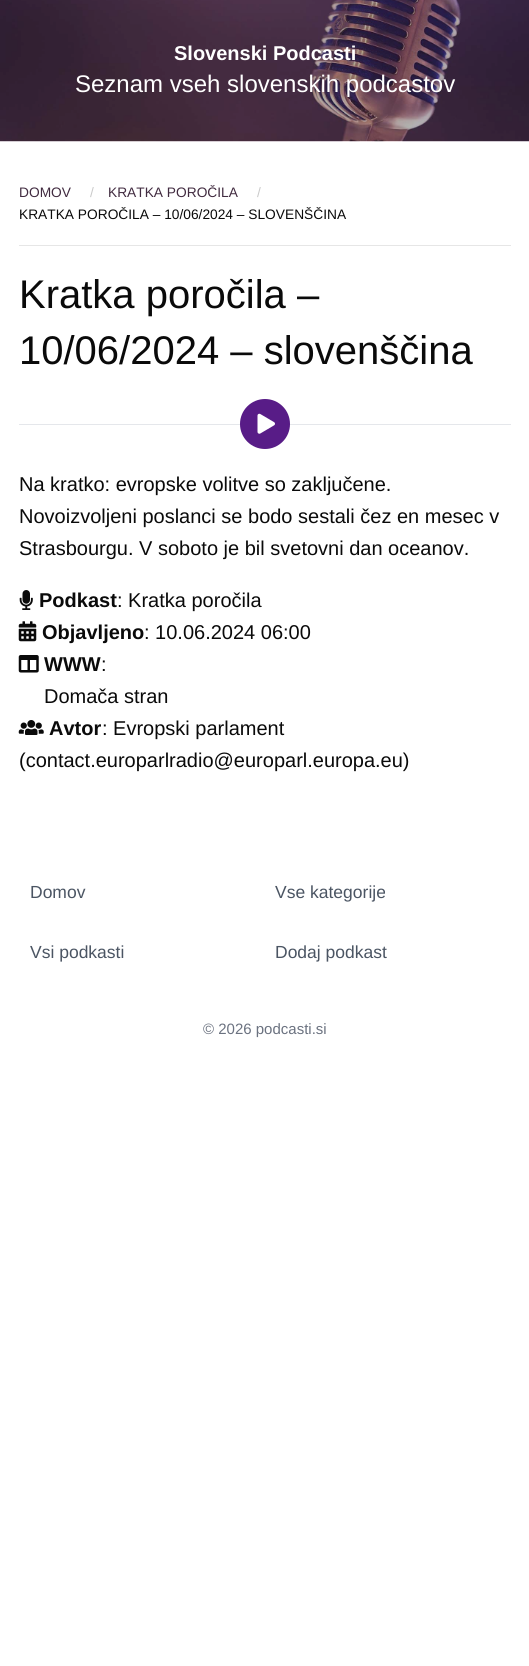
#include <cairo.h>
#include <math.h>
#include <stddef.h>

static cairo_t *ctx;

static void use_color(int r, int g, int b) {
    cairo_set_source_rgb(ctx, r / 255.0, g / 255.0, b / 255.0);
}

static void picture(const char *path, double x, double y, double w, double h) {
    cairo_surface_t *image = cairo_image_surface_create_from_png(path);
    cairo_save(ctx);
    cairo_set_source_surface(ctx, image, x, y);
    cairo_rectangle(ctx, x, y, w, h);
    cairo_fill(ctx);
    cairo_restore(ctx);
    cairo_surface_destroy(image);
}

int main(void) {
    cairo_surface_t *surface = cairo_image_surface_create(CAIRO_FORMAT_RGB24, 529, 1666);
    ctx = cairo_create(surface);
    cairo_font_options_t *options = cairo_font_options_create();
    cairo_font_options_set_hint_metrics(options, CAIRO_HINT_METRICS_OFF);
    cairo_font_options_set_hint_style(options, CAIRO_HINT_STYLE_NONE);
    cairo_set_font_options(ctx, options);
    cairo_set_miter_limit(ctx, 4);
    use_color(255, 255, 255);
    cairo_paint(ctx);
    picture("img1.png", 0, 0, 529, 142);
    cairo_select_font_face(ctx, "Liberation Sans", CAIRO_FONT_SLANT_NORMAL, CAIRO_FONT_WEIGHT_BOLD);
    cairo_set_font_size(ctx, 20);
    use_color(255, 255, 255);
    cairo_move_to(ctx, 174, 60);
    cairo_show_text(ctx, "Slovenski Podcasti");
    cairo_select_font_face(ctx, "Liberation Sans", CAIRO_FONT_SLANT_NORMAL, CAIRO_FONT_WEIGHT_NORMAL);
    cairo_set_font_size(ctx, 24);
    cairo_move_to(ctx, 75, 92);
    cairo_show_text(ctx, "Seznam vseh slovenskih podcastov");
    cairo_set_font_size(ctx, 13.75);
    use_color(65, 43, 64);
    cairo_move_to(ctx, 19, 197);
    cairo_show_text(ctx, "DOMOV");
    use_color(202, 202, 202);
    cairo_move_to(ctx, 90, 197);
    cairo_show_text(ctx, "/");
    use_color(65, 43, 64);
    cairo_move_to(ctx, 108, 197);
    cairo_show_text(ctx, "KRATKA POROČILA");
    use_color(202, 202, 202);
    cairo_move_to(ctx, 257, 197);
    cairo_show_text(ctx, "/");
    use_color(10, 10, 10);
    cairo_move_to(ctx, 19, 219);
    cairo_show_text(ctx, "KRATKA POROČILA – 10/06/2024 – SLOVENŠČINA");
    use_color(230, 230, 230);
    cairo_rectangle(ctx, 19, 245, 492, 1);
    cairo_fill(ctx);
    cairo_set_font_size(ctx, 40);
    use_color(10, 10, 10);
    cairo_move_to(ctx, 19, 308);
    cairo_show_text(ctx, "Kratka poročila –");
    cairo_move_to(ctx, 19, 364);
    cairo_show_text(ctx, "10/06/2024 – slovenščina");
    use_color(229, 231, 235);
    cairo_rectangle(ctx, 19, 424, 492, 1);
    cairo_fill(ctx);
    use_color(88, 28, 135);
    cairo_arc(ctx, 265, 424, 25, 0, 2 * M_PI);
    cairo_fill(ctx);
    picture("img2.png", 257, 413, 18, 21);
    cairo_set_font_size(ctx, 20);
    use_color(10, 10, 10);
    cairo_move_to(ctx, 19, 491);
    cairo_show_text(ctx, "Na kratko: evropske volitve so zaključene.");
    cairo_move_to(ctx, 19, 523);
    cairo_show_text(ctx, "Novoizvoljeni poslanci se bodo sestali čez en mesec v");
    cairo_move_to(ctx, 19, 555);
    cairo_show_text(ctx, "Strasbourgu. V soboto je bil svetovni dan oceanov.");
    picture("img3.png", 19, 590, 14, 20);
    cairo_select_font_face(ctx, "Liberation Sans", CAIRO_FONT_SLANT_NORMAL, CAIRO_FONT_WEIGHT_BOLD);
    cairo_move_to(ctx, 39, 607);
    cairo_show_text(ctx, "Podkast");
    cairo_select_font_face(ctx, "Liberation Sans", CAIRO_FONT_SLANT_NORMAL, CAIRO_FONT_WEIGHT_NORMAL);
    cairo_move_to(ctx, 117, 607);
    cairo_show_text(ctx, ": Kratka poročila");
    picture("img4.png", 18, 621, 19, 21);
    cairo_select_font_face(ctx, "Liberation Sans", CAIRO_FONT_SLANT_NORMAL, CAIRO_FONT_WEIGHT_BOLD);
    cairo_move_to(ctx, 42, 639);
    cairo_show_text(ctx, "Objavljeno");
    cairo_select_font_face(ctx, "Liberation Sans", CAIRO_FONT_SLANT_NORMAL, CAIRO_FONT_WEIGHT_NORMAL);
    cairo_move_to(ctx, 144, 639);
    cairo_show_text(ctx, ": 10.06.2024 06:00");
    picture("img5.png", 18, 655, 21, 18);
    cairo_select_font_face(ctx, "Liberation Sans", CAIRO_FONT_SLANT_NORMAL, CAIRO_FONT_WEIGHT_BOLD);
    cairo_move_to(ctx, 44, 671);
    cairo_show_text(ctx, "WWW");
    cairo_select_font_face(ctx, "Liberation Sans", CAIRO_FONT_SLANT_NORMAL, CAIRO_FONT_WEIGHT_NORMAL);
    cairo_move_to(ctx, 101, 671);
    cairo_show_text(ctx, ":");
    cairo_move_to(ctx, 44, 703);
    cairo_show_text(ctx, "Domača stran");
    picture("img6.png", 18, 720, 26, 15);
    cairo_select_font_face(ctx, "Liberation Sans", CAIRO_FONT_SLANT_NORMAL, CAIRO_FONT_WEIGHT_BOLD);
    cairo_move_to(ctx, 49, 735);
    cairo_show_text(ctx, "Avtor");
    cairo_select_font_face(ctx, "Liberation Sans", CAIRO_FONT_SLANT_NORMAL, CAIRO_FONT_WEIGHT_NORMAL);
    cairo_move_to(ctx, 102, 735);
    cairo_show_text(ctx, ": Evropski parlament");
    cairo_move_to(ctx, 19, 767);
    cairo_show_text(ctx, "(contact.europarlradio@europarl.europa.eu)");
    cairo_set_font_size(ctx, 17.5);
    use_color(75, 85, 99);
    cairo_move_to(ctx, 30, 898);
    cairo_show_text(ctx, "Domov");
    cairo_move_to(ctx, 275, 898);
    cairo_show_text(ctx, "Vse kategorije");
    cairo_move_to(ctx, 30, 958);
    cairo_show_text(ctx, "Vsi podkasti");
    cairo_move_to(ctx, 275, 958);
    cairo_show_text(ctx, "Dodaj podkast");
    cairo_set_font_size(ctx, 15);
    use_color(107, 114, 128);
    cairo_move_to(ctx, 203, 1034);
    cairo_show_text(ctx, "© 2026 podcasti.si");
    cairo_surface_write_to_png(surface, "result.png");
    cairo_font_options_destroy(options);
    cairo_destroy(ctx);
    cairo_surface_destroy(surface);
    return 0;
}
